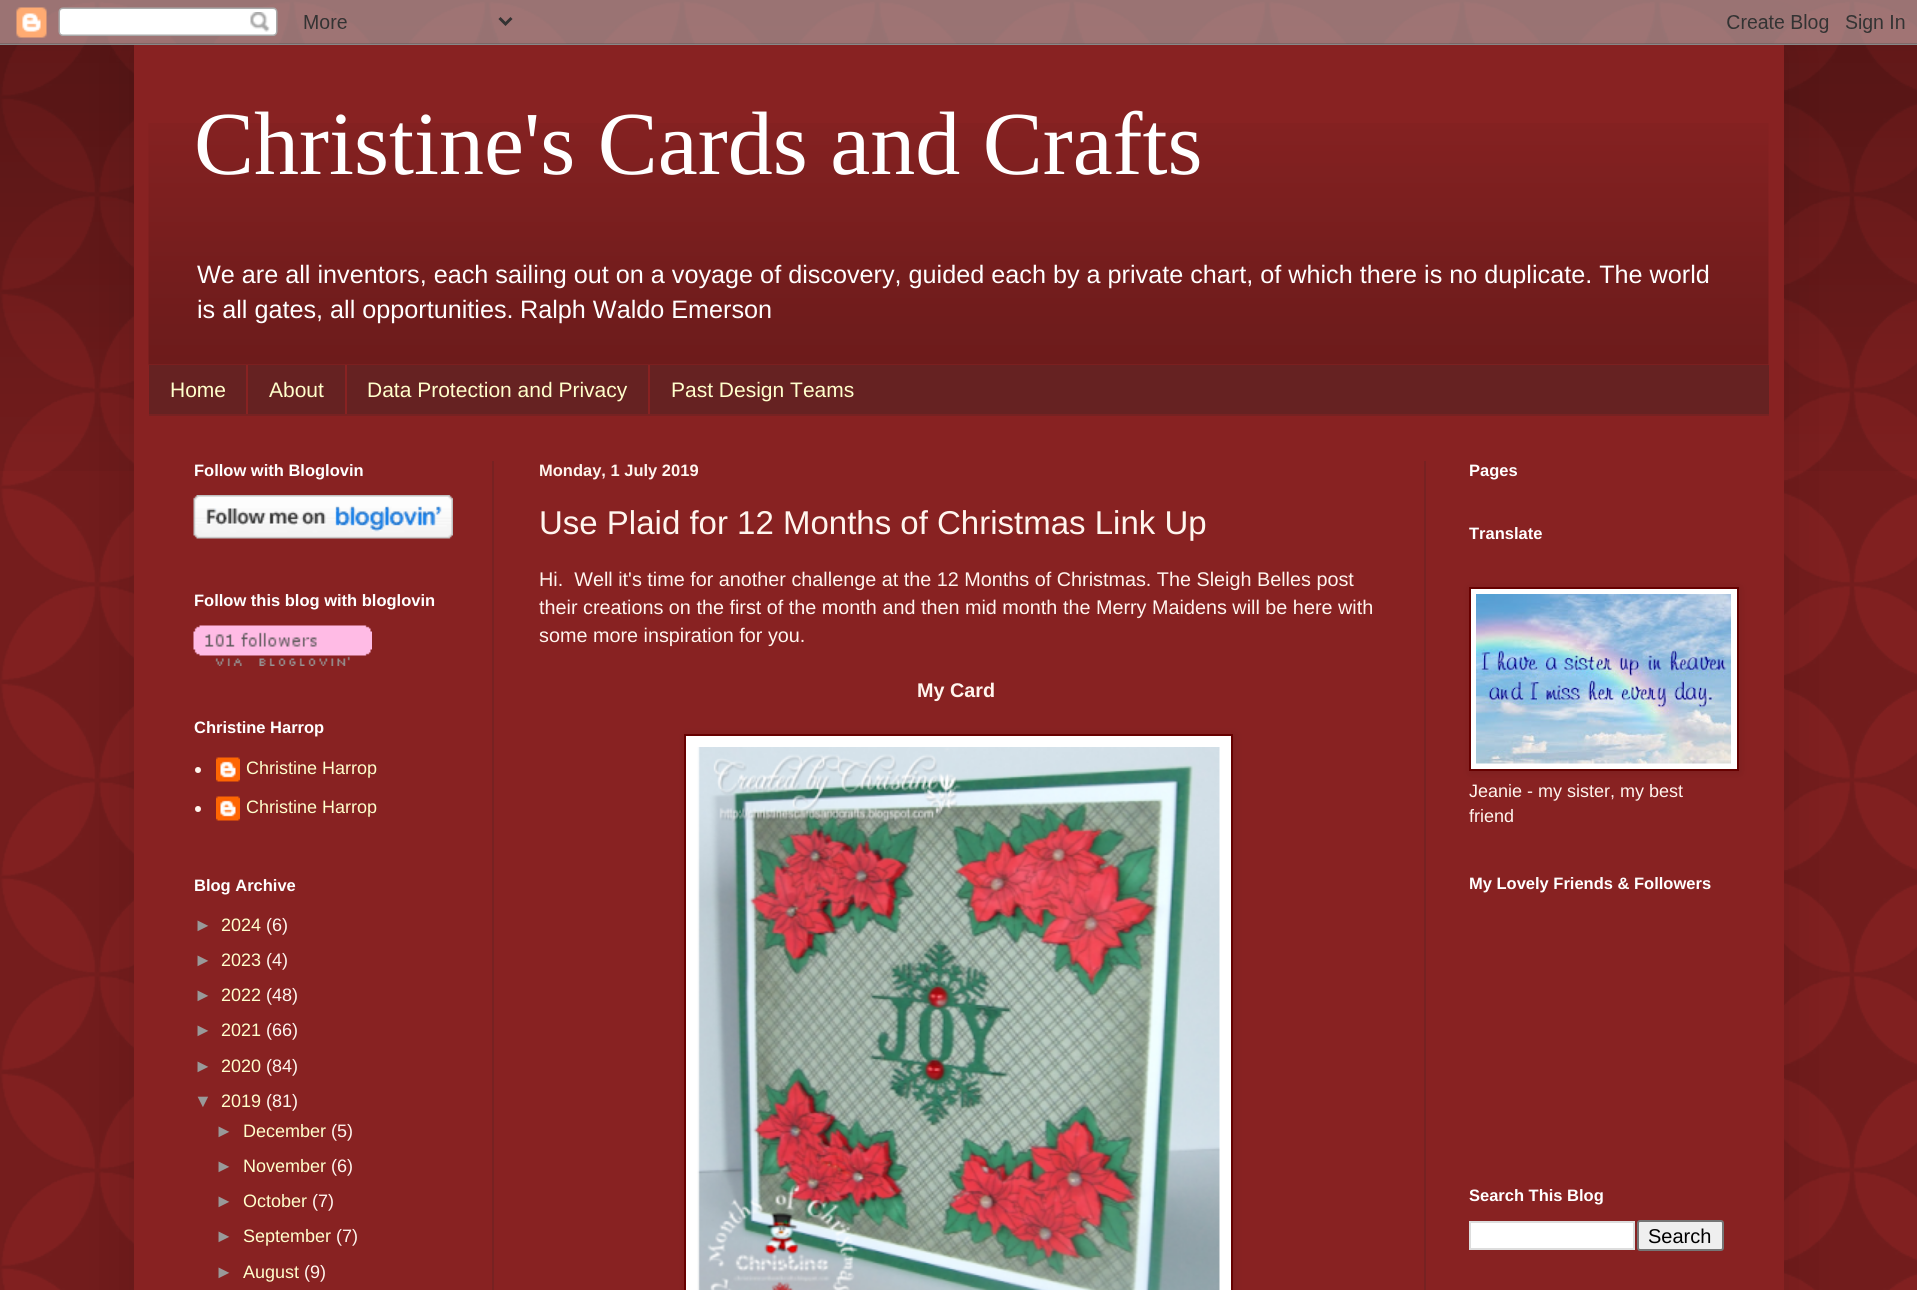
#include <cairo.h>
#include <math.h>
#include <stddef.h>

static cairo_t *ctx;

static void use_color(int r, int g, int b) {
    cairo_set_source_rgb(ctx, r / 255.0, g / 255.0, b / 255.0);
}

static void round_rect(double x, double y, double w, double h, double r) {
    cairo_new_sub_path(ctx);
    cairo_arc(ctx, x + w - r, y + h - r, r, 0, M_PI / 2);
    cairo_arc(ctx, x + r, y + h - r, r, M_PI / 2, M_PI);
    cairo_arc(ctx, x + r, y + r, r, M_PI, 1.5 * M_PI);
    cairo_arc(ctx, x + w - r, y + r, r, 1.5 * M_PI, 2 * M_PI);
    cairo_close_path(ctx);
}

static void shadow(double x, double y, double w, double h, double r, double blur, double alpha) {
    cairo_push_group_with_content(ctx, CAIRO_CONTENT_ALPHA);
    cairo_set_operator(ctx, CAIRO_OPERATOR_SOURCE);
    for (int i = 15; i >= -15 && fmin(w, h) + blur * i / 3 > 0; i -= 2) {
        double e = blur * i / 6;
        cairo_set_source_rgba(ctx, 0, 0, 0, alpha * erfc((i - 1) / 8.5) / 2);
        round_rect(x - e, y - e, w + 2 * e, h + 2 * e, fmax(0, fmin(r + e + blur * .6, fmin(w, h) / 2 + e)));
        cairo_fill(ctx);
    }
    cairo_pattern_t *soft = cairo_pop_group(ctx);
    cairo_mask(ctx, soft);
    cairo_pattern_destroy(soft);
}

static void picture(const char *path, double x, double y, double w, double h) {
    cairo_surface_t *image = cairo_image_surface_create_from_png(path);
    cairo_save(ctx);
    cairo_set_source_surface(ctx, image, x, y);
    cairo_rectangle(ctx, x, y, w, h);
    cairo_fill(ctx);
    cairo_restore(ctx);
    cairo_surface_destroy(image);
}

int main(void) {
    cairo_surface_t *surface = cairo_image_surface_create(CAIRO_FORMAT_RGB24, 1917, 1290);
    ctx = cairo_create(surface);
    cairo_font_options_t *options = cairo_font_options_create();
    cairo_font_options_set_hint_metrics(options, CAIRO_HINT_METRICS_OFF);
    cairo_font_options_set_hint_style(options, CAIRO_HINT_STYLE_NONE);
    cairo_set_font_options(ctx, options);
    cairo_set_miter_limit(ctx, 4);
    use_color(136, 34, 34);
    cairo_paint(ctx);
    picture("img1.png", 0, 0, 1917, 1290);
    picture("img2.png", 0, 0, 1917, 471);
    use_color(0, 0, 0);
    shadow(134, 45, 1650, 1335, 0, 30, 0.15);
    picture("img3.png", 0, 0, 1917, 45);
    use_color(136, 34, 34);
    cairo_rectangle(ctx, 134, 45, 1650, 1245);
    cairo_fill(ctx);
    picture("img4.png", 148, 123, 1621, 242);
    cairo_select_font_face(ctx, "Liberation Serif", CAIRO_FONT_SLANT_NORMAL, CAIRO_FONT_WEIGHT_NORMAL);
    cairo_set_font_size(ctx, 90);
    use_color(255, 255, 255);
    cairo_move_to(ctx, 194, 174);
    cairo_show_text(ctx, "Christine's Cards and Crafts");
    cairo_select_font_face(ctx, "Liberation Sans", CAIRO_FONT_SLANT_NORMAL, CAIRO_FONT_WEIGHT_NORMAL);
    cairo_set_font_size(ctx, 25.2);
    cairo_move_to(ctx, 197, 283);
    cairo_show_text(ctx, "We are all inventors, each sailing out on a voyage of discovery, guided each by a private chart, of which there is no duplicate. The world");
    cairo_move_to(ctx, 197, 318);
    cairo_show_text(ctx, "is all gates, all opportunities.");
    cairo_move_to(ctx, 520, 318);
    cairo_show_text(ctx, "Ralph Waldo Emerson");
    use_color(102, 34, 34);
    cairo_rectangle(ctx, 149, 365, 1620, 49);
    cairo_fill(ctx);
    use_color(119, 34, 34);
    cairo_rectangle(ctx, 149, 414, 1620, 2);
    cairo_fill(ctx);
    cairo_set_font_size(ctx, 21);
    use_color(255, 255, 204);
    cairo_move_to(ctx, 170, 397);
    cairo_show_text(ctx, "Home");
    use_color(136, 34, 34);
    cairo_rectangle(ctx, 246, 365, 2, 49);
    cairo_fill(ctx);
    use_color(255, 255, 204);
    cairo_move_to(ctx, 269, 397);
    cairo_show_text(ctx, "About");
    use_color(136, 34, 34);
    cairo_rectangle(ctx, 345, 365, 2, 49);
    cairo_fill(ctx);
    use_color(255, 255, 204);
    cairo_move_to(ctx, 367, 397);
    cairo_show_text(ctx, "Data Protection and Privacy");
    use_color(136, 34, 34);
    cairo_rectangle(ctx, 648, 365, 2, 49);
    cairo_fill(ctx);
    use_color(255, 255, 204);
    cairo_move_to(ctx, 671, 397);
    cairo_show_text(ctx, "Past Design Teams");
    use_color(119, 34, 34);
    cairo_rectangle(ctx, 492, 461, 2, 829);
    cairo_fill(ctx);
    cairo_rectangle(ctx, 1424, 461, 2, 829);
    cairo_fill(ctx);
    cairo_select_font_face(ctx, "Liberation Sans", CAIRO_FONT_SLANT_NORMAL, CAIRO_FONT_WEIGHT_BOLD);
    cairo_set_font_size(ctx, 16.5);
    use_color(255, 255, 255);
    cairo_move_to(ctx, 194, 476);
    cairo_show_text(ctx, "Follow with Bloglovin");
    picture("img5.png", 193, 495, 260, 44);
    cairo_move_to(ctx, 194, 606);
    cairo_show_text(ctx, "Follow this blog with bloglovin");
    picture("img6.png", 193, 625, 179, 41);
    cairo_move_to(ctx, 194, 733);
    cairo_show_text(ctx, "Christine Harrop");
    use_color(255, 245, 238);
    cairo_new_path(ctx);
    cairo_arc(ctx, 198, 770, 3, 0, 2 * M_PI);
    cairo_fill(ctx);
    picture("img7.png", 216, 757, 24, 25);
    cairo_select_font_face(ctx, "Liberation Sans", CAIRO_FONT_SLANT_NORMAL, CAIRO_FONT_WEIGHT_NORMAL);
    cairo_set_font_size(ctx, 18);
    use_color(255, 255, 204);
    cairo_move_to(ctx, 246, 774);
    cairo_show_text(ctx, "Christine Harrop");
    use_color(255, 245, 238);
    cairo_new_path(ctx);
    cairo_arc(ctx, 198, 809, 3, 0, 2 * M_PI);
    cairo_fill(ctx);
    picture("img7.png", 216, 796, 24, 25);
    use_color(255, 255, 204);
    cairo_move_to(ctx, 246, 813);
    cairo_show_text(ctx, "Christine Harrop");
    cairo_select_font_face(ctx, "Liberation Sans", CAIRO_FONT_SLANT_NORMAL, CAIRO_FONT_WEIGHT_BOLD);
    cairo_set_font_size(ctx, 16.5);
    use_color(255, 255, 255);
    cairo_move_to(ctx, 194, 891);
    cairo_show_text(ctx, "Blog Archive");
    cairo_select_font_face(ctx, "Liberation Sans", CAIRO_FONT_SLANT_NORMAL, CAIRO_FONT_WEIGHT_NORMAL);
    cairo_set_font_size(ctx, 18);
    use_color(153, 153, 153);
    cairo_move_to(ctx, 194, 931);
    cairo_show_text(ctx, "►");
    use_color(255, 255, 204);
    cairo_move_to(ctx, 221, 931);
    cairo_show_text(ctx, "2024");
    use_color(255, 245, 238);
    cairo_move_to(ctx, 266, 931);
    cairo_show_text(ctx, "(6)");
    use_color(153, 153, 153);
    cairo_move_to(ctx, 194, 966);
    cairo_show_text(ctx, "►");
    use_color(255, 255, 204);
    cairo_move_to(ctx, 221, 966);
    cairo_show_text(ctx, "2023");
    use_color(255, 245, 238);
    cairo_move_to(ctx, 266, 966);
    cairo_show_text(ctx, "(4)");
    use_color(153, 153, 153);
    cairo_move_to(ctx, 194, 1001);
    cairo_show_text(ctx, "►");
    use_color(255, 255, 204);
    cairo_move_to(ctx, 221, 1001);
    cairo_show_text(ctx, "2022");
    use_color(255, 245, 238);
    cairo_move_to(ctx, 266, 1001);
    cairo_show_text(ctx, "(48)");
    use_color(153, 153, 153);
    cairo_move_to(ctx, 194, 1036);
    cairo_show_text(ctx, "►");
    use_color(255, 255, 204);
    cairo_move_to(ctx, 221, 1036);
    cairo_show_text(ctx, "2021");
    use_color(255, 245, 238);
    cairo_move_to(ctx, 266, 1036);
    cairo_show_text(ctx, "(66)");
    use_color(153, 153, 153);
    cairo_move_to(ctx, 194, 1072);
    cairo_show_text(ctx, "►");
    use_color(255, 255, 204);
    cairo_move_to(ctx, 221, 1072);
    cairo_show_text(ctx, "2020");
    use_color(255, 245, 238);
    cairo_move_to(ctx, 266, 1072);
    cairo_show_text(ctx, "(84)");
    use_color(153, 153, 153);
    cairo_move_to(ctx, 194, 1107);
    cairo_show_text(ctx, "▼");
    use_color(255, 255, 204);
    cairo_move_to(ctx, 221, 1107);
    cairo_show_text(ctx, "2019");
    use_color(255, 245, 238);
    cairo_move_to(ctx, 266, 1107);
    cairo_show_text(ctx, "(81)");
    use_color(153, 153, 153);
    cairo_move_to(ctx, 215, 1137);
    cairo_show_text(ctx, "►");
    use_color(255, 255, 204);
    cairo_move_to(ctx, 243, 1137);
    cairo_show_text(ctx, "December");
    use_color(255, 245, 238);
    cairo_move_to(ctx, 331, 1137);
    cairo_show_text(ctx, "(5)");
    use_color(153, 153, 153);
    cairo_move_to(ctx, 215, 1172);
    cairo_show_text(ctx, "►");
    use_color(255, 255, 204);
    cairo_move_to(ctx, 243, 1172);
    cairo_show_text(ctx, "November");
    use_color(255, 245, 238);
    cairo_move_to(ctx, 331, 1172);
    cairo_show_text(ctx, "(6)");
    use_color(153, 153, 153);
    cairo_move_to(ctx, 215, 1207);
    cairo_show_text(ctx, "►");
    use_color(255, 255, 204);
    cairo_move_to(ctx, 243, 1207);
    cairo_show_text(ctx, "October");
    use_color(255, 245, 238);
    cairo_move_to(ctx, 312, 1207);
    cairo_show_text(ctx, "(7)");
    use_color(153, 153, 153);
    cairo_move_to(ctx, 215, 1242);
    cairo_show_text(ctx, "►");
    use_color(255, 255, 204);
    cairo_move_to(ctx, 243, 1242);
    cairo_show_text(ctx, "September");
    use_color(255, 245, 238);
    cairo_move_to(ctx, 336, 1242);
    cairo_show_text(ctx, "(7)");
    use_color(153, 153, 153);
    cairo_move_to(ctx, 215, 1278);
    cairo_show_text(ctx, "►");
    use_color(255, 255, 204);
    cairo_move_to(ctx, 243, 1278);
    cairo_show_text(ctx, "August");
    use_color(255, 245, 238);
    cairo_move_to(ctx, 304, 1278);
    cairo_show_text(ctx, "(9)");
    cairo_select_font_face(ctx, "Liberation Sans", CAIRO_FONT_SLANT_NORMAL, CAIRO_FONT_WEIGHT_BOLD);
    cairo_set_font_size(ctx, 16.5);
    cairo_move_to(ctx, 539, 476);
    cairo_show_text(ctx, "Monday, 1 July 2019");
    cairo_select_font_face(ctx, "Liberation Sans", CAIRO_FONT_SLANT_NORMAL, CAIRO_FONT_WEIGHT_NORMAL);
    cairo_set_font_size(ctx, 33);
    cairo_move_to(ctx, 539, 534);
    cairo_show_text(ctx, "Use Plaid for 12 Months of Christmas Link Up");
    cairo_set_font_size(ctx, 19.8);
    cairo_move_to(ctx, 539, 586);
    cairo_show_text(ctx, "Hi.  Well it's time for another challenge at the 12 Months of Christmas. The Sleigh Belles post");
    cairo_move_to(ctx, 539, 614);
    cairo_show_text(ctx, "their creations on the first of the month and then mid month the Merry Maidens will be here with");
    cairo_move_to(ctx, 539, 642);
    cairo_show_text(ctx, "some more inspiration for you.");
    cairo_select_font_face(ctx, "Liberation Sans", CAIRO_FONT_SLANT_NORMAL, CAIRO_FONT_WEIGHT_BOLD);
    cairo_move_to(ctx, 917, 697);
    cairo_show_text(ctx, "My Card");
    use_color(0, 0, 0);
    shadow(686, 735, 549, 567, 0, 4, 0.1);
    use_color(255, 255, 255);
    cairo_rectangle(ctx, 685, 735, 547, 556);
    cairo_fill_preserve(ctx);
    use_color(102, 0, 0);
    cairo_stroke(ctx);
    picture("img8.png", 697, 747, 523, 543);
    cairo_set_font_size(ctx, 16.5);
    use_color(255, 255, 255);
    cairo_move_to(ctx, 1469, 476);
    cairo_show_text(ctx, "Pages");
    cairo_move_to(ctx, 1469, 539);
    cairo_show_text(ctx, "Translate");
    use_color(0, 0, 0);
    shadow(1470, 588, 270, 185, 0, 4, 0.1);
    use_color(255, 255, 255);
    cairo_rectangle(ctx, 1470, 588, 268, 182);
    cairo_fill_preserve(ctx);
    use_color(102, 0, 0);
    cairo_stroke(ctx);
    picture("img9.png", 1476, 594, 255, 170);
    cairo_select_font_face(ctx, "Liberation Sans", CAIRO_FONT_SLANT_NORMAL, CAIRO_FONT_WEIGHT_NORMAL);
    cairo_set_font_size(ctx, 18);
    use_color(255, 245, 238);
    cairo_move_to(ctx, 1469, 797);
    cairo_show_text(ctx, "Jeanie - my sister, my best");
    cairo_move_to(ctx, 1469, 822);
    cairo_show_text(ctx, "friend");
    cairo_select_font_face(ctx, "Liberation Sans", CAIRO_FONT_SLANT_NORMAL, CAIRO_FONT_WEIGHT_BOLD);
    cairo_set_font_size(ctx, 16.5);
    use_color(255, 255, 255);
    cairo_move_to(ctx, 1469, 889);
    cairo_show_text(ctx, "My Lovely Friends & Followers");
    cairo_move_to(ctx, 1469, 1201);
    cairo_show_text(ctx, "Search This Blog");
    cairo_rectangle(ctx, 1470, 1222, 164, 27);
    cairo_fill_preserve(ctx);
    use_color(221, 221, 221);
    cairo_stroke(ctx);
    use_color(239, 239, 239);
    round_rect(1638, 1221, 85, 29, 2);
    cairo_fill_preserve(ctx);
    use_color(118, 118, 118);
    cairo_stroke(ctx);
    cairo_select_font_face(ctx, "Liberation Sans", CAIRO_FONT_SLANT_NORMAL, CAIRO_FONT_WEIGHT_NORMAL);
    cairo_set_font_size(ctx, 20);
    use_color(0, 0, 0);
    cairo_move_to(ctx, 1648, 1243);
    cairo_show_text(ctx, "Search");
    cairo_surface_write_to_png(surface, "result.png");
    cairo_font_options_destroy(options);
    cairo_destroy(ctx);
    cairo_surface_destroy(surface);
    return 0;
}
